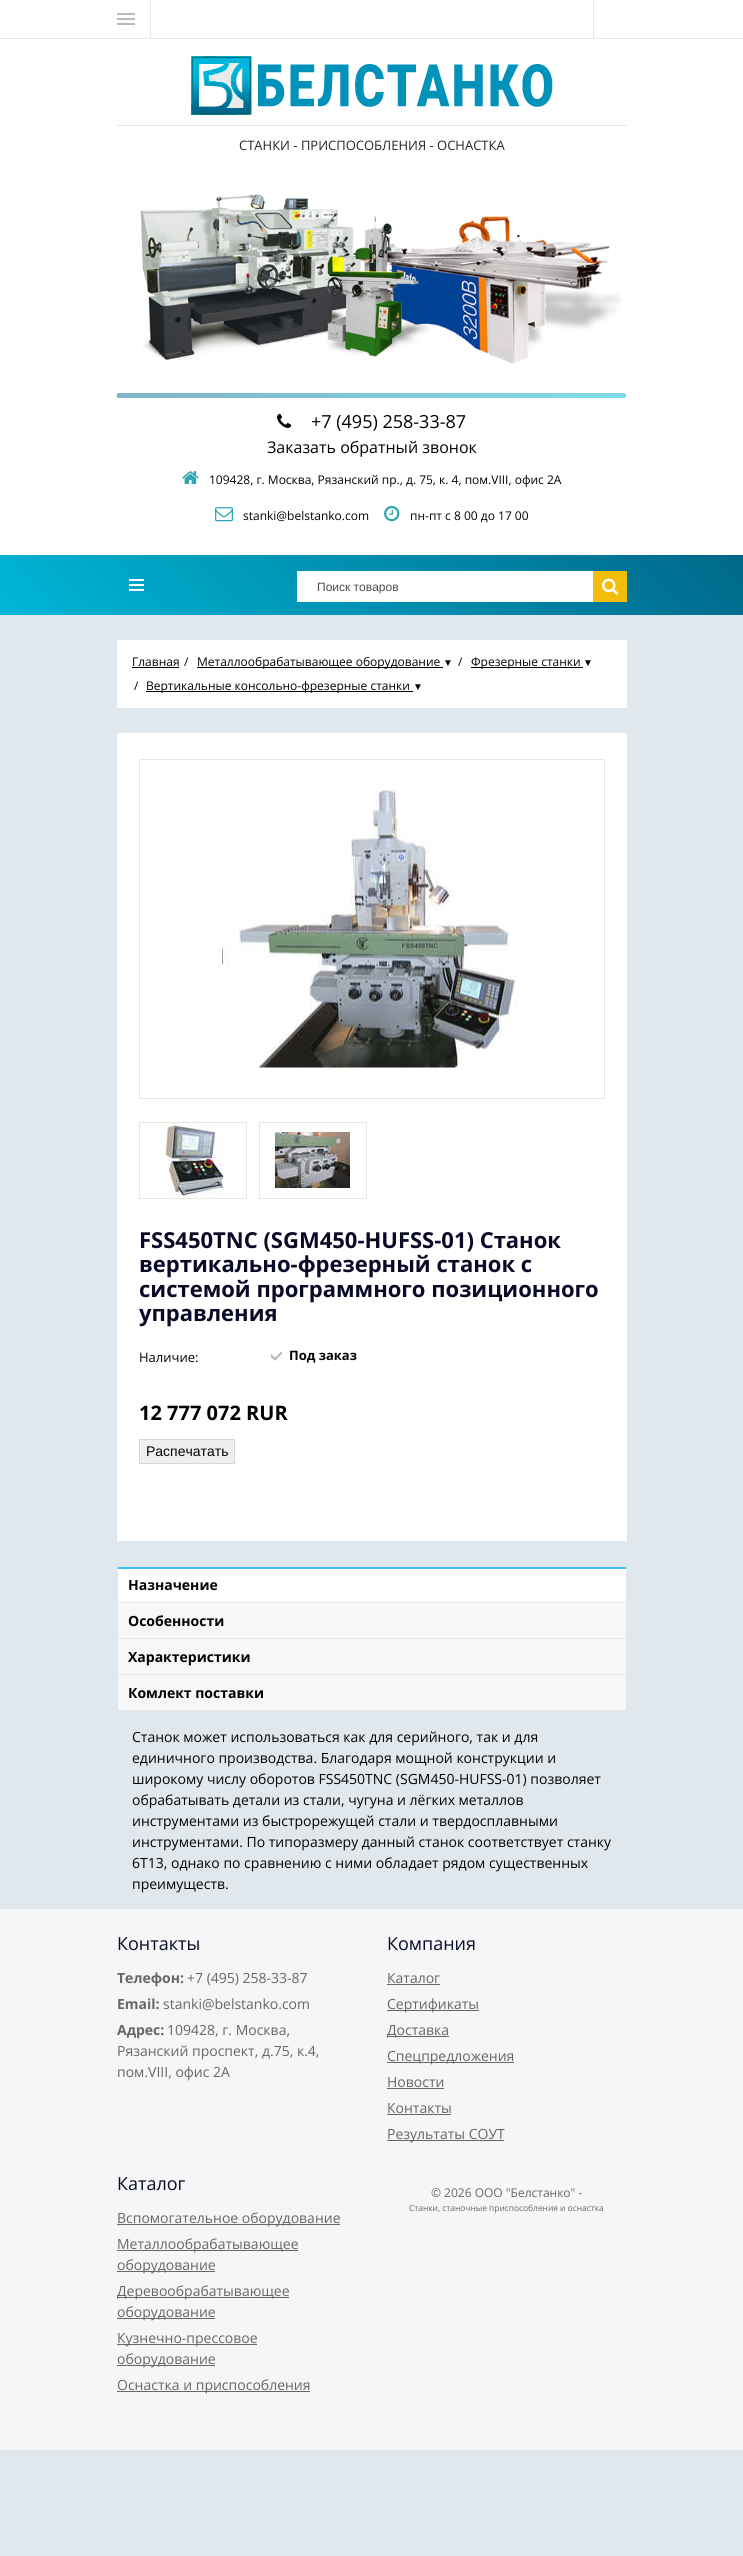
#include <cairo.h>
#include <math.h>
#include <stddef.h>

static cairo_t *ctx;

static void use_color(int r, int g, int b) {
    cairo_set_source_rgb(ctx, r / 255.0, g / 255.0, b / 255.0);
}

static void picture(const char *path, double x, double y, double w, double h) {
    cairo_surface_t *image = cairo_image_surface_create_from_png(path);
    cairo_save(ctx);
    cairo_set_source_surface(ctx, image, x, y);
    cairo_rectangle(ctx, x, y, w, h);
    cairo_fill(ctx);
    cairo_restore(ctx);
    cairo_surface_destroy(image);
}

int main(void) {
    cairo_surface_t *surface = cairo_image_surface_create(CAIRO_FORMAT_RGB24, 743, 2556);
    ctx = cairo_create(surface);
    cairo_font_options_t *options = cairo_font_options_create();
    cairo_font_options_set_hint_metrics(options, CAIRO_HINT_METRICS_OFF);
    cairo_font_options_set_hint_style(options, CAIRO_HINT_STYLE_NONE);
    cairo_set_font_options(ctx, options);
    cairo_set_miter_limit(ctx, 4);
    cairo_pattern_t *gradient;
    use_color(225, 232, 237);
    cairo_paint(ctx);
    use_color(255, 255, 255);
    cairo_rectangle(ctx, 0, 0, 743, 555);
    cairo_fill(ctx);
    use_color(232, 232, 225);
    cairo_rectangle(ctx, 0, 38, 743, 1);
    cairo_fill(ctx);
    cairo_rectangle(ctx, 150, 0, 1, 38);
    cairo_fill(ctx);
    picture("img1.png", 117, 13, 18, 12);
    cairo_rectangle(ctx, 593, 0, 1, 38);
    cairo_fill(ctx);
    picture("img2.png", 191, 56, 362, 59);
    use_color(230, 230, 230);
    cairo_rectangle(ctx, 117, 125, 510, 1);
    cairo_fill(ctx);
    cairo_select_font_face(ctx, "Open Sans", CAIRO_FONT_SLANT_NORMAL, CAIRO_FONT_WEIGHT_NORMAL);
    cairo_set_font_size(ctx, 13);
    use_color(36, 37, 37);
    cairo_move_to(ctx, 239, 150);
    cairo_show_text(ctx, "СТАНКИ - ПРИСПОСОБЛЕНИЯ - ОСНАСТКА");
    picture("img3.png", 140, 194, 482, 170);
    gradient = cairo_pattern_create_linear(500, 267, 243, 524);
    cairo_pattern_add_color_stop_rgba(gradient, 0, 0.502, 0.859, 0.922, 1);
    cairo_pattern_add_color_stop_rgba(gradient, 1, 0.502, 0.706, 0.773, 1);
    cairo_set_source(ctx, gradient);
    cairo_pattern_destroy(gradient);
    cairo_new_path(ctx);
    cairo_move_to(ctx, 624, 398);
    cairo_line_to(ctx, 118, 398);
    cairo_curve_to(ctx, 116, 397, 116, 393, 119, 393);
    cairo_line_to(ctx, 624, 393);
    cairo_curve_to(ctx, 627, 393, 627, 398, 624, 398);
    cairo_close_path(ctx);
    cairo_fill(ctx);
    picture("img4.png", 277, 413, 15, 15);
    cairo_set_font_size(ctx, 18);
    use_color(3, 3, 3);
    cairo_move_to(ctx, 311, 428);
    cairo_show_text(ctx, "+7 (495) 258-33-87");
    cairo_set_font_size(ctx, 16);
    cairo_move_to(ctx, 267, 453);
    cairo_show_text(ctx, "Заказать обратный звонок");
    picture("img5.png", 182, 471, 17, 13);
    cairo_set_font_size(ctx, 12);
    cairo_move_to(ctx, 209, 484);
    cairo_show_text(ctx, "109428, г. Москва, Рязанский пр., д. 75, к. 4, пом.VIII, офис 2А");
    picture("img6.png", 215, 507, 18, 15);
    cairo_move_to(ctx, 243, 520);
    cairo_show_text(ctx, "stanki@belstanko.com");
    picture("img7.png", 384, 505, 16, 17);
    cairo_move_to(ctx, 410, 520);
    cairo_show_text(ctx, "пн-пт с 8 00 до 17 00");
    gradient = cairo_pattern_create_linear(171, 786, 572, 384);
    cairo_pattern_add_color_stop_rgba(gradient, 0, 0, 0.714, 0.839, 1);
    cairo_pattern_add_color_stop_rgba(gradient, 1, 0, 0.408, 0.541, 1);
    cairo_set_source(ctx, gradient);
    cairo_pattern_destroy(gradient);
    cairo_rectangle(ctx, 0, 555, 743, 60);
    cairo_fill(ctx);
    use_color(255, 255, 255);
    cairo_rectangle(ctx, 129, 579, 15, 2);
    cairo_fill(ctx);
    cairo_rectangle(ctx, 129, 584, 15, 2);
    cairo_fill(ctx);
    cairo_rectangle(ctx, 129, 589, 15, 2);
    cairo_fill(ctx);
    cairo_rectangle(ctx, 297, 571, 296, 31);
    cairo_fill(ctx);
    cairo_select_font_face(ctx, "Liberation Sans", CAIRO_FONT_SLANT_NORMAL, CAIRO_FONT_WEIGHT_NORMAL);
    use_color(77, 77, 77);
    cairo_move_to(ctx, 317, 591);
    cairo_show_text(ctx, "Поиск товаров");
    use_color(242, 189, 11);
    cairo_rectangle(ctx, 593, 571, 34, 31);
    cairo_fill(ctx);
    picture("img8.png", 602, 578, 16, 17);
    use_color(255, 255, 255);
    cairo_rectangle(ctx, 117, 640, 510, 68);
    cairo_fill(ctx);
    cairo_select_font_face(ctx, "Open Sans", CAIRO_FONT_SLANT_NORMAL, CAIRO_FONT_WEIGHT_NORMAL);
    use_color(3, 3, 3);
    cairo_move_to(ctx, 132, 666);
    cairo_show_text(ctx, "Главная");
    cairo_rectangle(ctx, 132, 667, 47, 1);
    cairo_fill(ctx);
    cairo_move_to(ctx, 184, 666);
    cairo_show_text(ctx, "/");
    cairo_rectangle(ctx, 197, 667, 246, 1);
    cairo_fill(ctx);
    cairo_move_to(ctx, 197, 666);
    cairo_show_text(ctx, "Металлообрабатывающее оборудование");
    cairo_select_font_face(ctx, "Liberation Sans", CAIRO_FONT_SLANT_NORMAL, CAIRO_FONT_WEIGHT_NORMAL);
    cairo_set_font_size(ctx, 10);
    cairo_move_to(ctx, 443, 666);
    cairo_show_text(ctx, "▼");
    cairo_select_font_face(ctx, "Open Sans", CAIRO_FONT_SLANT_NORMAL, CAIRO_FONT_WEIGHT_NORMAL);
    cairo_set_font_size(ctx, 12);
    cairo_move_to(ctx, 458, 666);
    cairo_show_text(ctx, "/");
    cairo_rectangle(ctx, 471, 667, 112, 1);
    cairo_fill(ctx);
    cairo_move_to(ctx, 471, 666);
    cairo_show_text(ctx, "Фрезерные станки");
    cairo_select_font_face(ctx, "Liberation Sans", CAIRO_FONT_SLANT_NORMAL, CAIRO_FONT_WEIGHT_NORMAL);
    cairo_set_font_size(ctx, 10);
    cairo_move_to(ctx, 583, 666);
    cairo_show_text(ctx, "▼");
    cairo_select_font_face(ctx, "Open Sans", CAIRO_FONT_SLANT_NORMAL, CAIRO_FONT_WEIGHT_NORMAL);
    cairo_set_font_size(ctx, 12);
    cairo_move_to(ctx, 134, 690);
    cairo_show_text(ctx, "/");
    cairo_rectangle(ctx, 146, 691, 267, 1);
    cairo_fill(ctx);
    cairo_move_to(ctx, 146, 690);
    cairo_show_text(ctx, "Вертикальные консольно-фрезерные станки");
    cairo_select_font_face(ctx, "Liberation Sans", CAIRO_FONT_SLANT_NORMAL, CAIRO_FONT_WEIGHT_NORMAL);
    cairo_set_font_size(ctx, 10);
    cairo_move_to(ctx, 413, 690);
    cairo_show_text(ctx, "▼");
    use_color(255, 255, 255);
    cairo_rectangle(ctx, 117, 733, 510, 808);
    cairo_fill(ctx);
    cairo_rectangle(ctx, 139.5, 759.5, 465, 339);
    use_color(232, 232, 225);
    cairo_set_line_width(ctx, 1);
    cairo_stroke(ctx);
    picture("img9.png", 222, 790, 296, 278);
    cairo_rectangle(ctx, 139.5, 1122.5, 107, 76);
    cairo_stroke(ctx);
    picture("img10.png", 159, 1123, 67, 74);
    cairo_rectangle(ctx, 259.5, 1122.5, 107, 76);
    cairo_stroke(ctx);
    picture("img11.png", 275, 1132, 75, 56);
    cairo_select_font_face(ctx, "Open Sans", CAIRO_FONT_SLANT_NORMAL, CAIRO_FONT_WEIGHT_BOLD);
    cairo_set_font_size(ctx, 22);
    use_color(10, 10, 40);
    cairo_move_to(ctx, 139, 1248);
    cairo_show_text(ctx, "FSS450TNС (SGM450-HUFSS-01) Станок");
    cairo_move_to(ctx, 139, 1272);
    cairo_show_text(ctx, "вертикально-фрезерный станок с");
    cairo_move_to(ctx, 139, 1297);
    cairo_show_text(ctx, "системой программного позиционного");
    cairo_move_to(ctx, 139, 1321);
    cairo_show_text(ctx, "управления");
    cairo_select_font_face(ctx, "Open Sans", CAIRO_FONT_SLANT_NORMAL, CAIRO_FONT_WEIGHT_NORMAL);
    cairo_set_font_size(ctx, 13);
    use_color(3, 3, 3);
    cairo_move_to(ctx, 139, 1362);
    cairo_show_text(ctx, "Наличие:");
    picture("img12.png", 271, 1352, 11, 9);
    cairo_select_font_face(ctx, "Open Sans", CAIRO_FONT_SLANT_NORMAL, CAIRO_FONT_WEIGHT_BOLD);
    cairo_move_to(ctx, 289, 1360);
    cairo_show_text(ctx, "Под заказ");
    cairo_set_font_size(ctx, 20);
    cairo_move_to(ctx, 139, 1420);
    cairo_show_text(ctx, "12 777 072 RUR");
    use_color(239, 239, 239);
    cairo_rectangle(ctx, 139.5, 1439.5, 95, 24);
    cairo_fill_preserve(ctx);
    use_color(216, 216, 209);
    cairo_stroke(ctx);
    cairo_select_font_face(ctx, "Liberation Sans", CAIRO_FONT_SLANT_NORMAL, CAIRO_FONT_WEIGHT_NORMAL);
    cairo_set_font_size(ctx, 14);
    use_color(3, 3, 3);
    cairo_move_to(ctx, 146, 1456);
    cairo_show_text(ctx, "Распечатать");
    use_color(255, 255, 255);
    cairo_rectangle(ctx, 118, 1569, 508, 33);
    cairo_fill(ctx);
    use_color(56, 192, 243);
    cairo_rectangle(ctx, 118, 1567, 508, 2);
    cairo_fill(ctx);
    cairo_select_font_face(ctx, "Open Sans", CAIRO_FONT_SLANT_NORMAL, CAIRO_FONT_WEIGHT_BOLD);
    use_color(3, 3, 3);
    cairo_move_to(ctx, 128, 1590);
    cairo_show_text(ctx, "Назначение");
    use_color(247, 247, 247);
    cairo_rectangle(ctx, 118, 1603, 508, 35);
    cairo_fill(ctx);
    use_color(3, 3, 3);
    cairo_move_to(ctx, 128, 1626);
    cairo_show_text(ctx, "Особенности");
    use_color(247, 247, 247);
    cairo_rectangle(ctx, 118, 1639, 508, 35);
    cairo_fill(ctx);
    use_color(3, 3, 3);
    cairo_move_to(ctx, 128, 1662);
    cairo_show_text(ctx, "Характеристики");
    use_color(247, 247, 247);
    cairo_rectangle(ctx, 118, 1675, 508, 35);
    cairo_fill(ctx);
    use_color(3, 3, 3);
    cairo_move_to(ctx, 128, 1698);
    cairo_show_text(ctx, "Комлект поставки");
    cairo_select_font_face(ctx, "Open Sans", CAIRO_FONT_SLANT_NORMAL, CAIRO_FONT_WEIGHT_NORMAL);
    cairo_move_to(ctx, 132, 1742);
    cairo_show_text(ctx, "Станок может использоваться как для серийного, так и для");
    cairo_move_to(ctx, 132, 1763);
    cairo_show_text(ctx, "единичного производства. Благодаря мощной конструкции и");
    cairo_move_to(ctx, 132, 1784);
    cairo_show_text(ctx, "широкому числу оборотов FSS450TNC (SGM450-HUFSS-01) позволяет");
    cairo_move_to(ctx, 132, 1805);
    cairo_show_text(ctx, "обрабатывать детали из стали, чугуна и лёгких металлов");
    cairo_move_to(ctx, 132, 1826);
    cairo_show_text(ctx, "инструментами из быстрорежущей стали и твердосплавными");
    cairo_move_to(ctx, 132, 1847);
    cairo_show_text(ctx, "инструментами. По типоразмеру данный станок соответствует станку");
    cairo_move_to(ctx, 132, 1868);
    cairo_show_text(ctx, "6Т13, однако по сравнению с ними обладает рядом существенных");
    cairo_move_to(ctx, 132, 1889);
    cairo_show_text(ctx, "преимуществ.");
    use_color(245, 246, 247);
    cairo_rectangle(ctx, 0, 1909, 743, 541);
    cairo_fill(ctx);
    cairo_set_font_size(ctx, 18);
    use_color(10, 10, 40);
    cairo_move_to(ctx, 117, 1950);
    cairo_show_text(ctx, "Контакты");
    cairo_select_font_face(ctx, "Open Sans", CAIRO_FONT_SLANT_NORMAL, CAIRO_FONT_WEIGHT_BOLD);
    cairo_set_font_size(ctx, 14);
    use_color(104, 102, 102);
    cairo_move_to(ctx, 117, 1983);
    cairo_show_text(ctx, "Телефон:");
    cairo_select_font_face(ctx, "Open Sans", CAIRO_FONT_SLANT_NORMAL, CAIRO_FONT_WEIGHT_NORMAL);
    cairo_move_to(ctx, 187, 1983);
    cairo_show_text(ctx, "+7 (495) 258-33-87");
    cairo_select_font_face(ctx, "Open Sans", CAIRO_FONT_SLANT_NORMAL, CAIRO_FONT_WEIGHT_BOLD);
    cairo_move_to(ctx, 117, 2009);
    cairo_show_text(ctx, "Email:");
    cairo_select_font_face(ctx, "Open Sans", CAIRO_FONT_SLANT_NORMAL, CAIRO_FONT_WEIGHT_NORMAL);
    cairo_move_to(ctx, 163, 2009);
    cairo_show_text(ctx, "stanki@belstanko.com");
    cairo_select_font_face(ctx, "Open Sans", CAIRO_FONT_SLANT_NORMAL, CAIRO_FONT_WEIGHT_BOLD);
    cairo_move_to(ctx, 117, 2035);
    cairo_show_text(ctx, "Адрес:");
    cairo_select_font_face(ctx, "Open Sans", CAIRO_FONT_SLANT_NORMAL, CAIRO_FONT_WEIGHT_NORMAL);
    cairo_move_to(ctx, 167, 2035);
    cairo_show_text(ctx, "109428, г. Москва,");
    cairo_move_to(ctx, 117, 2056);
    cairo_show_text(ctx, "Рязанский проспект, д.75, к.4,");
    cairo_move_to(ctx, 117, 2077);
    cairo_show_text(ctx, "пом.VIII, офис 2А");
    cairo_set_font_size(ctx, 18);
    use_color(10, 10, 40);
    cairo_move_to(ctx, 387, 1950);
    cairo_show_text(ctx, "Компания");
    cairo_set_font_size(ctx, 14);
    use_color(104, 102, 102);
    cairo_move_to(ctx, 387, 1983);
    cairo_show_text(ctx, "Каталог");
    cairo_rectangle(ctx, 387, 1984, 53, 1);
    cairo_fill(ctx);
    cairo_rectangle(ctx, 387, 2010, 92, 1);
    cairo_fill(ctx);
    cairo_move_to(ctx, 387, 2009);
    cairo_show_text(ctx, "Сертификаты");
    cairo_rectangle(ctx, 387, 2036, 62, 1);
    cairo_fill(ctx);
    cairo_move_to(ctx, 387, 2035);
    cairo_show_text(ctx, "Доставка");
    cairo_rectangle(ctx, 387, 2062, 127, 1);
    cairo_fill(ctx);
    cairo_move_to(ctx, 387, 2061);
    cairo_show_text(ctx, "Спецпредложения");
    cairo_move_to(ctx, 387, 2087);
    cairo_show_text(ctx, "Новости");
    cairo_rectangle(ctx, 387, 2088, 57, 1);
    cairo_fill(ctx);
    cairo_move_to(ctx, 387, 2113);
    cairo_show_text(ctx, "Контакты");
    cairo_rectangle(ctx, 387, 2114, 64, 1);
    cairo_fill(ctx);
    cairo_rectangle(ctx, 387, 2140, 117, 1);
    cairo_fill(ctx);
    cairo_move_to(ctx, 387, 2139);
    cairo_show_text(ctx, "Результаты СОУТ");
    cairo_set_font_size(ctx, 18);
    use_color(10, 10, 40);
    cairo_move_to(ctx, 117, 2190);
    cairo_show_text(ctx, "Каталог");
    use_color(104, 102, 102);
    cairo_rectangle(ctx, 117, 2224, 223, 1);
    cairo_fill(ctx);
    cairo_set_font_size(ctx, 14);
    cairo_move_to(ctx, 117, 2223);
    cairo_show_text(ctx, "Вспомогательное оборудование");
    cairo_rectangle(ctx, 117, 2250, 181, 1);
    cairo_fill(ctx);
    cairo_move_to(ctx, 117, 2249);
    cairo_show_text(ctx, "Металлообрабатывающее");
    cairo_rectangle(ctx, 117, 2271, 98, 1);
    cairo_fill(ctx);
    cairo_move_to(ctx, 117, 2270);
    cairo_show_text(ctx, "оборудование");
    cairo_rectangle(ctx, 117, 2297, 172, 1);
    cairo_fill(ctx);
    cairo_move_to(ctx, 117, 2296);
    cairo_show_text(ctx, "Деревообрабатывающее");
    cairo_rectangle(ctx, 117, 2318, 98, 1);
    cairo_fill(ctx);
    cairo_move_to(ctx, 117, 2317);
    cairo_show_text(ctx, "оборудование");
    cairo_rectangle(ctx, 117, 2344, 140, 1);
    cairo_fill(ctx);
    cairo_move_to(ctx, 117, 2343);
    cairo_show_text(ctx, "Кузнечно-прессовое");
    cairo_rectangle(ctx, 117, 2365, 98, 1);
    cairo_fill(ctx);
    cairo_move_to(ctx, 117, 2364);
    cairo_show_text(ctx, "оборудование");
    cairo_rectangle(ctx, 117, 2391, 193, 1);
    cairo_fill(ctx);
    cairo_move_to(ctx, 117, 2390);
    cairo_show_text(ctx, "Оснастка и приспособления");
    cairo_set_font_size(ctx, 12);
    cairo_move_to(ctx, 431, 2197);
    cairo_show_text(ctx, "© 2026 ООО \"Белстанко\" -");
    cairo_set_font_size(ctx, 8.4);
    cairo_move_to(ctx, 409, 2211);
    cairo_show_text(ctx, "Станки, станочные приспособления и оснастка");
    cairo_surface_write_to_png(surface, "result.png");
    cairo_font_options_destroy(options);
    cairo_destroy(ctx);
    cairo_surface_destroy(surface);
    return 0;
}
